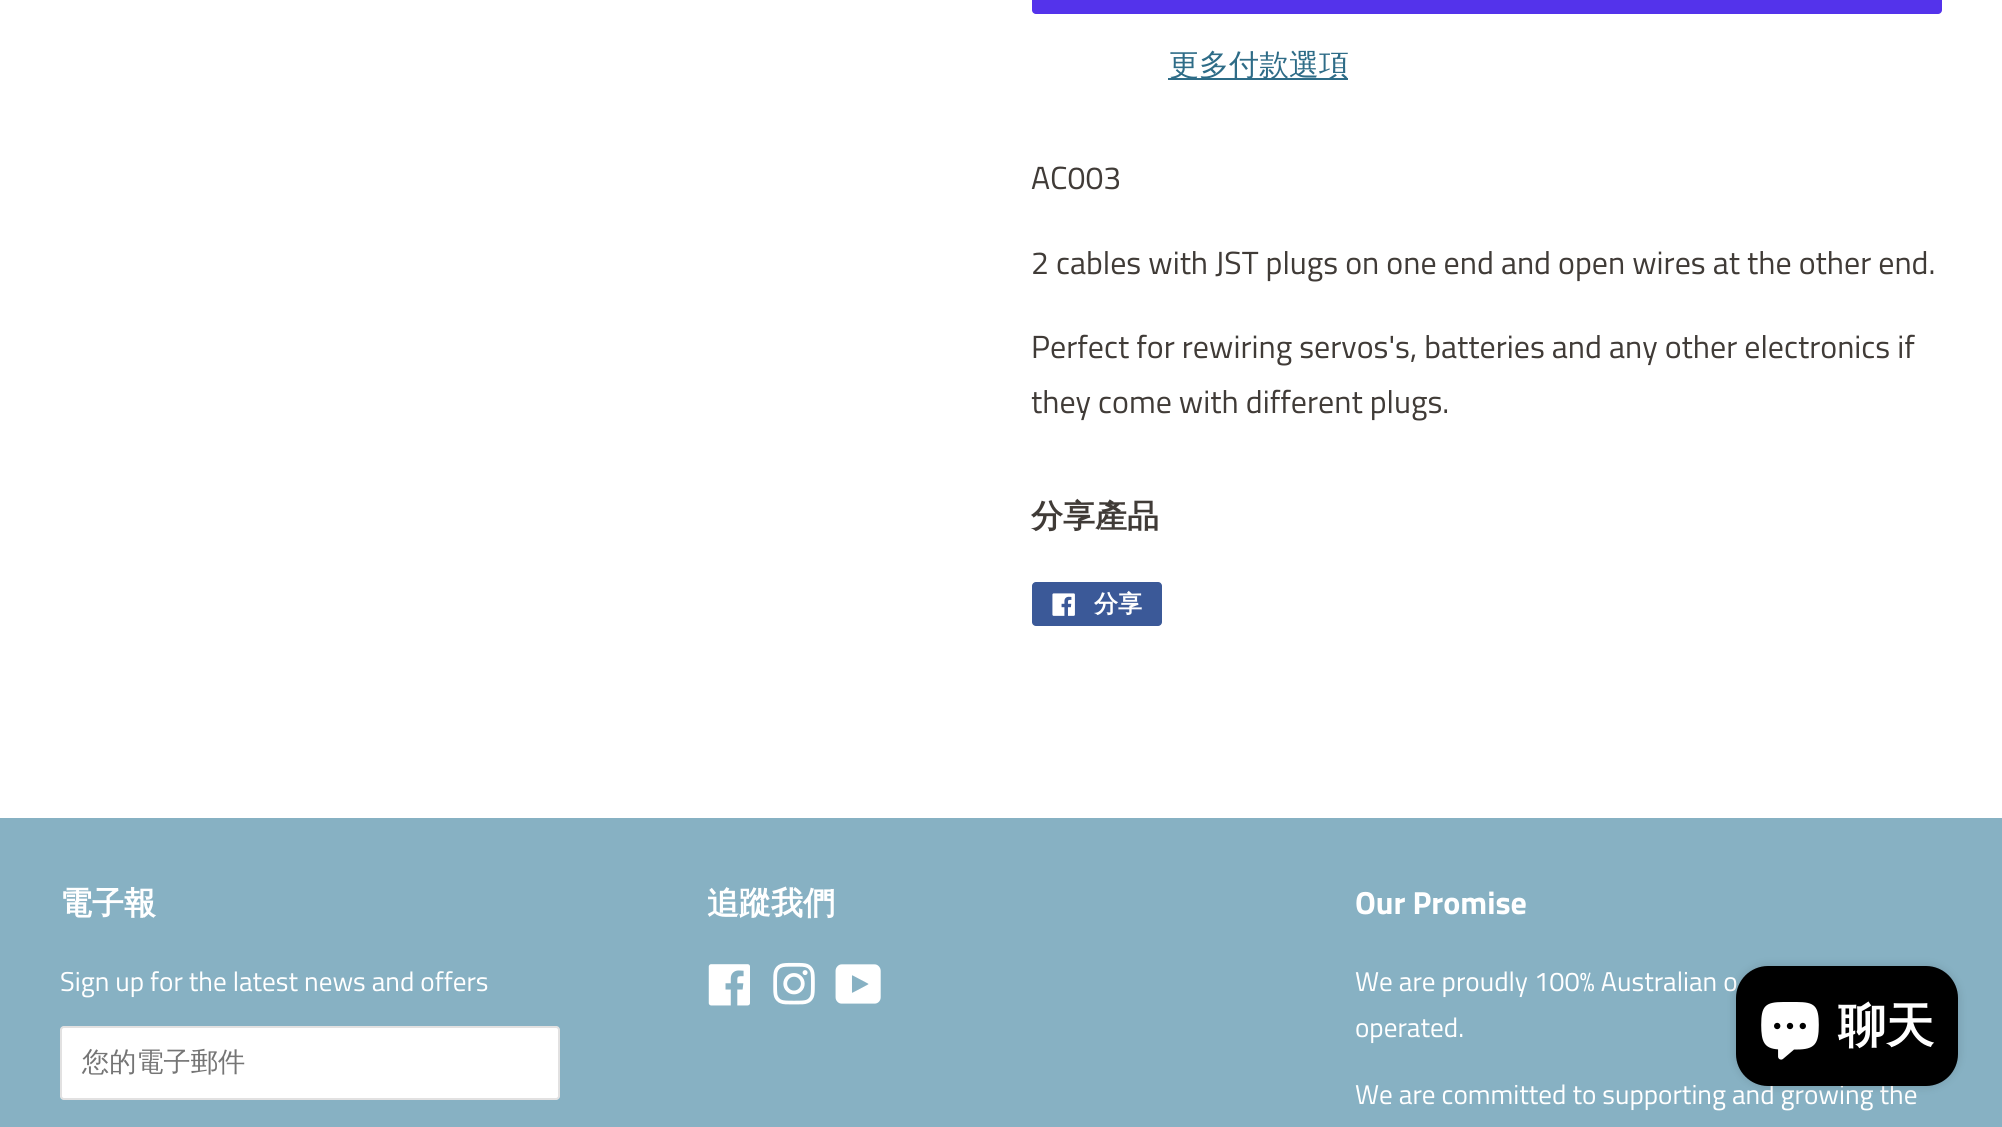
#include <cairo.h>
#include <math.h>
#include <stddef.h>

static cairo_t *ctx;

static void use_color(int r, int g, int b) {
    cairo_set_source_rgb(ctx, r / 255.0, g / 255.0, b / 255.0);
}

static void round_rect(double x, double y, double w, double h, double r) {
    cairo_new_sub_path(ctx);
    cairo_arc(ctx, x + w - r, y + h - r, r, 0, M_PI / 2);
    cairo_arc(ctx, x + r, y + h - r, r, M_PI / 2, M_PI);
    cairo_arc(ctx, x + r, y + r, r, M_PI, 1.5 * M_PI);
    cairo_arc(ctx, x + w - r, y + r, r, 1.5 * M_PI, 2 * M_PI);
    cairo_close_path(ctx);
}

static void shadow(double x, double y, double w, double h, double r, double blur, double alpha) {
    cairo_push_group_with_content(ctx, CAIRO_CONTENT_ALPHA);
    cairo_set_operator(ctx, CAIRO_OPERATOR_SOURCE);
    for (int i = 15; i >= -15 && fmin(w, h) + blur * i / 3 > 0; i -= 2) {
        double e = blur * i / 6;
        cairo_set_source_rgba(ctx, 0, 0, 0, alpha * erfc((i - 1) / 8.5) / 2);
        round_rect(x - e, y - e, w + 2 * e, h + 2 * e, fmax(0, fmin(r + e + blur * .6, fmin(w, h) / 2 + e)));
        cairo_fill(ctx);
    }
    cairo_pattern_t *soft = cairo_pop_group(ctx);
    cairo_mask(ctx, soft);
    cairo_pattern_destroy(soft);
}

static void picture(const char *path, double x, double y, double w, double h) {
    cairo_surface_t *image = cairo_image_surface_create_from_png(path);
    cairo_save(ctx);
    cairo_set_source_surface(ctx, image, x, y);
    cairo_rectangle(ctx, x, y, w, h);
    cairo_fill(ctx);
    cairo_restore(ctx);
    cairo_surface_destroy(image);
}

int main(void) {
    cairo_surface_t *surface = cairo_image_surface_create(CAIRO_FORMAT_RGB24, 2002, 1127);
    ctx = cairo_create(surface);
    cairo_font_options_t *options = cairo_font_options_create();
    cairo_font_options_set_hint_metrics(options, CAIRO_HINT_METRICS_OFF);
    cairo_font_options_set_hint_style(options, CAIRO_HINT_STYLE_NONE);
    cairo_set_font_options(ctx, options);
    cairo_set_miter_limit(ctx, 4);
    use_color(255, 255, 255);
    cairo_paint(ctx);
    use_color(84, 51, 235);
    round_rect(1032, -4, 910, 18, 4);
    cairo_fill(ctx);
    use_color(46, 108, 135);
    cairo_rectangle(ctx, 1168, 78, 180, 2);
    cairo_fill(ctx);
    cairo_select_font_face(ctx, "WenQuanYi Zen Hei Medium", CAIRO_FONT_SLANT_NORMAL, CAIRO_FONT_WEIGHT_NORMAL);
    cairo_set_font_size(ctx, 30);
    cairo_move_to(ctx, 1169, 75);
    cairo_show_text(ctx, "更多付款選項");
    cairo_select_font_face(ctx, "Titillium Web", CAIRO_FONT_SLANT_NORMAL, CAIRO_FONT_WEIGHT_NORMAL);
    cairo_set_font_size(ctx, 32);
    use_color(64, 59, 55);
    cairo_move_to(ctx, 1031, 189);
    cairo_show_text(ctx, "AC003");
    cairo_move_to(ctx, 1031, 274);
    cairo_show_text(ctx, "2 cables with JST plugs on one end and open wires at the other end.");
    cairo_move_to(ctx, 1031, 358);
    cairo_show_text(ctx, "Perfect for rewiring servos's, batteries and any other electronics if");
    cairo_move_to(ctx, 1031, 413);
    cairo_show_text(ctx, "they come with different plugs.");
    cairo_select_font_face(ctx, "WenQuanYi Zen Hei", CAIRO_FONT_SLANT_NORMAL, CAIRO_FONT_WEIGHT_BOLD);
    cairo_move_to(ctx, 1031, 527);
    cairo_show_text(ctx, "分享產品");
    use_color(59, 89, 152);
    round_rect(1032, 582, 130, 44, 4);
    cairo_fill(ctx);
    picture("img1.png", 1052, 593, 23, 23);
    cairo_set_font_size(ctx, 24);
    use_color(255, 255, 255);
    cairo_move_to(ctx, 1094, 612);
    cairo_show_text(ctx, "分享");
    use_color(135, 177, 195);
    cairo_rectangle(ctx, 0, 818, 2002, 309);
    cairo_fill(ctx);
    cairo_set_font_size(ctx, 32);
    use_color(255, 255, 255);
    cairo_move_to(ctx, 60, 914);
    cairo_show_text(ctx, "電子報");
    cairo_select_font_face(ctx, "Titillium Web", CAIRO_FONT_SLANT_NORMAL, CAIRO_FONT_WEIGHT_NORMAL);
    cairo_set_font_size(ctx, 27.2);
    cairo_move_to(ctx, 60, 991);
    cairo_show_text(ctx, "Sign up for the latest news and offers");
    round_rect(60, 1026, 500, 74, 4);
    cairo_fill(ctx);
    round_rect(61, 1027, 498, 72, 3);
    cairo_set_source_rgba(ctx, 0.251, 0.231, 0.216, 0.15);
    cairo_stroke(ctx);
    cairo_select_font_face(ctx, "WenQuanYi Zen Hei Medium", CAIRO_FONT_SLANT_NORMAL, CAIRO_FONT_WEIGHT_NORMAL);
    use_color(117, 117, 117);
    cairo_move_to(ctx, 82, 1071);
    cairo_show_text(ctx, "您的電子郵件");
    cairo_select_font_face(ctx, "WenQuanYi Zen Hei", CAIRO_FONT_SLANT_NORMAL, CAIRO_FONT_WEIGHT_BOLD);
    cairo_set_font_size(ctx, 32);
    use_color(255, 255, 255);
    cairo_move_to(ctx, 707, 914);
    cairo_show_text(ctx, "追蹤我們");
    picture("img2.png", 708, 964, 42, 42);
    picture("img3.png", 773, 962, 42, 43);
    picture("img4.png", 835, 964, 46, 40);
    cairo_select_font_face(ctx, "Titillium Web", CAIRO_FONT_SLANT_NORMAL, CAIRO_FONT_WEIGHT_BOLD);
    cairo_move_to(ctx, 1355, 914);
    cairo_show_text(ctx, "Our Promise");
    cairo_select_font_face(ctx, "Titillium Web", CAIRO_FONT_SLANT_NORMAL, CAIRO_FONT_WEIGHT_NORMAL);
    cairo_set_font_size(ctx, 27.2);
    cairo_move_to(ctx, 1355, 991);
    cairo_show_text(ctx, "We are proudly 100% Australian o");
    cairo_move_to(ctx, 1355, 1037);
    cairo_show_text(ctx, "operated.");
    cairo_move_to(ctx, 1355, 1104);
    cairo_show_text(ctx, "We are committed to supporting and growing the");
    use_color(0, 0, 0);
    shadow(1736, 966, 222, 120, 32, 5, 0.15);
    use_color(0, 0, 0);
    round_rect(1736, 966, 222, 120, 32);
    cairo_fill(ctx);
    picture("img5.png", 1761, 1002, 58, 58);
    cairo_select_font_face(ctx, "WenQuanYi Zen Hei", CAIRO_FONT_SLANT_NORMAL, CAIRO_FONT_WEIGHT_BOLD);
    cairo_set_font_size(ctx, 48);
    use_color(255, 255, 255);
    cairo_move_to(ctx, 1838, 1042);
    cairo_show_text(ctx, "聊天");
    cairo_surface_write_to_png(surface, "result.png");
    cairo_font_options_destroy(options);
    cairo_destroy(ctx);
    cairo_surface_destroy(surface);
    return 0;
}
